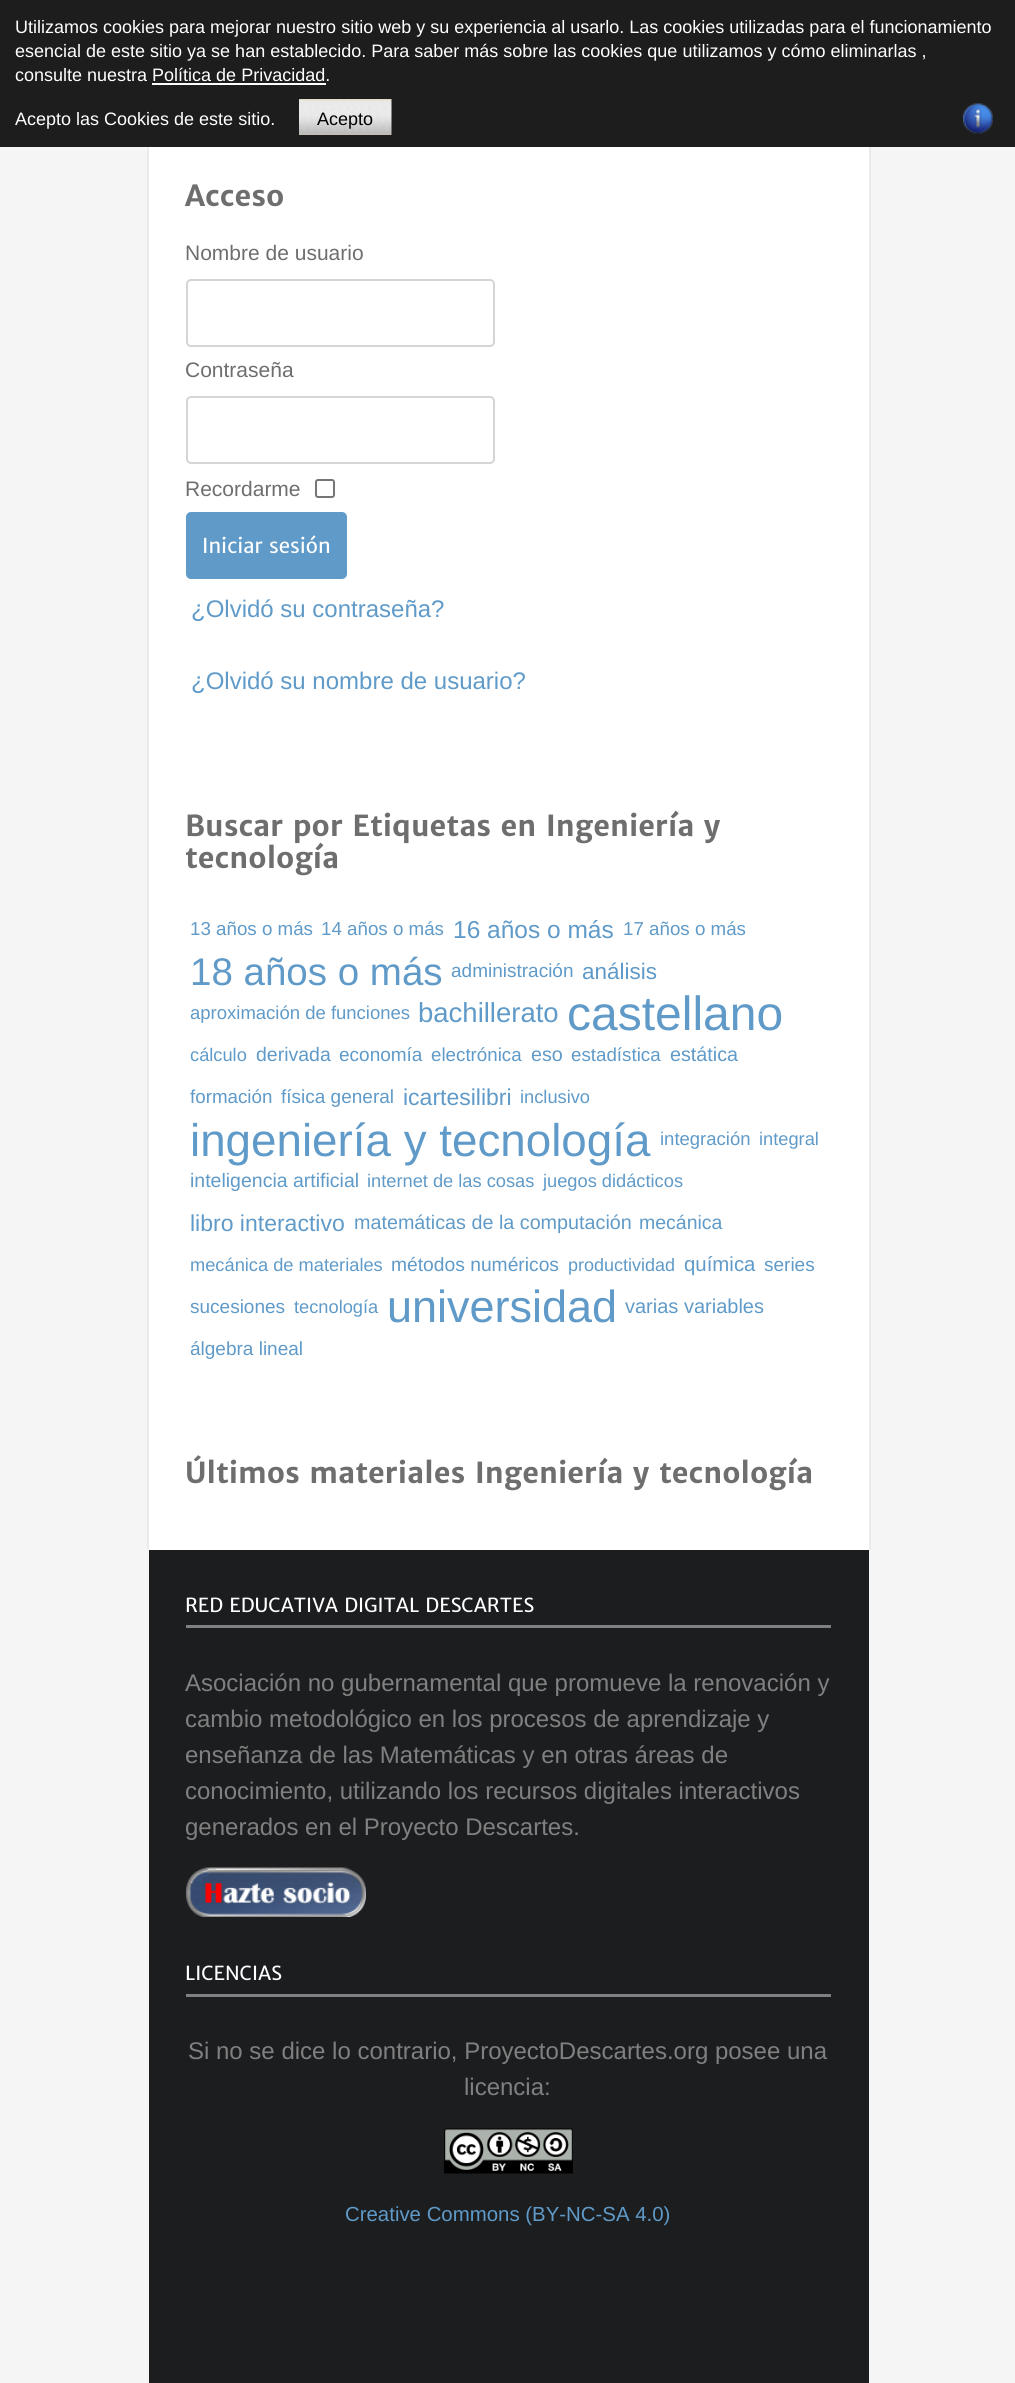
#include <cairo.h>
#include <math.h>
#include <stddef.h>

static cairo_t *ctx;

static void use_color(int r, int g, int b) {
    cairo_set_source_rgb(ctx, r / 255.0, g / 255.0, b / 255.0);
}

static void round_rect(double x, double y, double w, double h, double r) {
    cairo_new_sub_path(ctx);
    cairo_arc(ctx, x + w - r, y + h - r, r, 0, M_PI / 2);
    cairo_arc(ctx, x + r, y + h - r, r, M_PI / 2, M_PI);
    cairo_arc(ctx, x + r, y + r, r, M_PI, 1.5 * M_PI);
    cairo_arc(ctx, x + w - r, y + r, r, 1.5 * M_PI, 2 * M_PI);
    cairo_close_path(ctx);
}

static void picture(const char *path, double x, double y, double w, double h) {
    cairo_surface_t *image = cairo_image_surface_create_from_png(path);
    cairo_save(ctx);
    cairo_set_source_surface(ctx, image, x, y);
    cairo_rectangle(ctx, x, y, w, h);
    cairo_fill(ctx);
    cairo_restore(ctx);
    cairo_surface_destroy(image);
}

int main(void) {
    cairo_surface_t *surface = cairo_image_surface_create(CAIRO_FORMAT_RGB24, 1015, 2383);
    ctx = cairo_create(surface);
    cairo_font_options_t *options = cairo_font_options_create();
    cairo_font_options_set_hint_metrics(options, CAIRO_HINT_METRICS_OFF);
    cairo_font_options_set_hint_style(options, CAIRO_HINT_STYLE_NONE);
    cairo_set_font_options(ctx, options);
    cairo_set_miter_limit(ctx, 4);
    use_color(245, 245, 245);
    cairo_paint(ctx);
    use_color(29, 29, 29);
    cairo_rectangle(ctx, 0, 0, 1015, 147);
    cairo_fill(ctx);
    cairo_select_font_face(ctx, "Liberation Sans", CAIRO_FONT_SLANT_NORMAL, CAIRO_FONT_WEIGHT_NORMAL);
    cairo_set_font_size(ctx, 18);
    use_color(255, 255, 255);
    cairo_move_to(ctx, 15, 33);
    cairo_show_text(ctx, "Utilizamos cookies para mejorar nuestro sitio web y su experiencia al usarlo. Las cookies utilizadas para el funcionamiento");
    cairo_move_to(ctx, 15, 57);
    cairo_show_text(ctx, "esencial de este sitio ya se han establecido. Para saber más sobre las cookies que utilizamos y cómo eliminarlas ,");
    cairo_move_to(ctx, 15, 81);
    cairo_show_text(ctx, "consulte nuestra Política de Privacidad.");
    cairo_rectangle(ctx, 152, 83, 174, 2);
    cairo_fill(ctx);
    cairo_move_to(ctx, 15, 125);
    cairo_show_text(ctx, "Acepto las Cookies de este sitio.");
    picture("img1.png", 299, 99, 93, 36);
    use_color(0, 0, 0);
    cairo_move_to(ctx, 317, 125);
    cairo_show_text(ctx, "Acepto");
    picture("img2.png", 963, 103, 30, 31);
    use_color(235, 235, 235);
    cairo_rectangle(ctx, 869, 147, 2, 1403);
    cairo_fill(ctx);
    cairo_rectangle(ctx, 147, 147, 2, 1403);
    cairo_fill(ctx);
    use_color(255, 255, 255);
    cairo_rectangle(ctx, 149, 147, 720, 1403);
    cairo_fill(ctx);
    cairo_select_font_face(ctx, "Merriweather Sans", CAIRO_FONT_SLANT_NORMAL, CAIRO_FONT_WEIGHT_BOLD);
    cairo_set_font_size(ctx, 28.8);
    use_color(110, 110, 110);
    cairo_move_to(ctx, 185, 206);
    cairo_show_text(ctx, "Acceso");
    cairo_select_font_face(ctx, "Liberation Sans", CAIRO_FONT_SLANT_NORMAL, CAIRO_FONT_WEIGHT_NORMAL);
    cairo_set_font_size(ctx, 21);
    cairo_move_to(ctx, 185, 260);
    cairo_show_text(ctx, "Nombre de usuario");
    round_rect(187, 280, 307, 66, 4);
    use_color(213, 213, 213);
    cairo_stroke(ctx);
    use_color(110, 110, 110);
    cairo_move_to(ctx, 185, 377);
    cairo_show_text(ctx, "Contraseña");
    round_rect(187, 397, 307, 66, 4);
    use_color(213, 213, 213);
    cairo_stroke(ctx);
    use_color(110, 110, 110);
    cairo_move_to(ctx, 185, 496);
    cairo_show_text(ctx, "Recordarme");
    round_rect(316, 480, 18, 17, 2);
    use_color(118, 118, 118);
    cairo_stroke(ctx);
    use_color(95, 154, 200);
    round_rect(186, 512, 161, 67, 5);
    cairo_fill(ctx);
    cairo_select_font_face(ctx, "Merriweather Sans", CAIRO_FONT_SLANT_NORMAL, CAIRO_FONT_WEIGHT_NORMAL);
    cairo_set_font_size(ctx, 20.4);
    use_color(255, 255, 255);
    cairo_move_to(ctx, 202, 553);
    cairo_show_text(ctx, "Iniciar sesión");
    cairo_select_font_face(ctx, "Liberation Sans", CAIRO_FONT_SLANT_NORMAL, CAIRO_FONT_WEIGHT_NORMAL);
    cairo_set_font_size(ctx, 24);
    use_color(95, 154, 200);
    cairo_move_to(ctx, 191, 617);
    cairo_show_text(ctx, "¿Olvidó su contraseña?");
    cairo_move_to(ctx, 191, 689);
    cairo_show_text(ctx, "¿Olvidó su nombre de usuario?");
    cairo_select_font_face(ctx, "Merriweather Sans", CAIRO_FONT_SLANT_NORMAL, CAIRO_FONT_WEIGHT_BOLD);
    cairo_set_font_size(ctx, 28.8);
    use_color(110, 110, 110);
    cairo_move_to(ctx, 185, 836);
    cairo_show_text(ctx, "Buscar por Etiquetas en Ingeniería y");
    cairo_move_to(ctx, 185, 868);
    cairo_show_text(ctx, "tecnología");
    cairo_select_font_face(ctx, "Liberation Sans", CAIRO_FONT_SLANT_NORMAL, CAIRO_FONT_WEIGHT_NORMAL);
    cairo_set_font_size(ctx, 18.75);
    use_color(95, 154, 200);
    cairo_move_to(ctx, 190, 935);
    cairo_show_text(ctx, "13 años o más");
    cairo_move_to(ctx, 321, 935);
    cairo_show_text(ctx, "14 años o más");
    cairo_set_font_size(ctx, 24.5);
    cairo_move_to(ctx, 453, 938);
    cairo_show_text(ctx, "16 años o más");
    cairo_set_font_size(ctx, 18.75);
    cairo_move_to(ctx, 623, 935);
    cairo_show_text(ctx, "17 años o más");
    cairo_set_font_size(ctx, 38.5);
    cairo_move_to(ctx, 190, 985);
    cairo_show_text(ctx, "18 años o más");
    cairo_set_font_size(ctx, 19);
    cairo_move_to(ctx, 451, 977);
    cairo_show_text(ctx, "administración");
    cairo_set_font_size(ctx, 22.5);
    cairo_move_to(ctx, 582, 979);
    cairo_show_text(ctx, "análisis");
    cairo_set_font_size(ctx, 18.5);
    cairo_move_to(ctx, 190, 1019);
    cairo_show_text(ctx, "aproximación de funciones");
    cairo_set_font_size(ctx, 27.5);
    cairo_move_to(ctx, 418, 1022);
    cairo_show_text(ctx, "bachillerato");
    cairo_set_font_size(ctx, 48);
    cairo_move_to(ctx, 567, 1030);
    cairo_show_text(ctx, "castellano");
    cairo_set_font_size(ctx, 18.25);
    cairo_move_to(ctx, 190, 1061);
    cairo_show_text(ctx, "cálculo");
    cairo_set_font_size(ctx, 19.5);
    cairo_move_to(ctx, 256, 1061);
    cairo_show_text(ctx, "derivada");
    cairo_set_font_size(ctx, 19);
    cairo_move_to(ctx, 339, 1061);
    cairo_show_text(ctx, "economía");
    cairo_set_font_size(ctx, 18.75);
    cairo_move_to(ctx, 431, 1061);
    cairo_show_text(ctx, "electrónica");
    cairo_set_font_size(ctx, 19.75);
    cairo_move_to(ctx, 531, 1061);
    cairo_show_text(ctx, "eso");
    cairo_set_font_size(ctx, 18.75);
    cairo_move_to(ctx, 571, 1061);
    cairo_show_text(ctx, "estadística");
    cairo_set_font_size(ctx, 19.75);
    cairo_move_to(ctx, 670, 1061);
    cairo_show_text(ctx, "estática");
    cairo_set_font_size(ctx, 18.75);
    cairo_move_to(ctx, 190, 1103);
    cairo_show_text(ctx, "formación");
    cairo_set_font_size(ctx, 19);
    cairo_move_to(ctx, 281, 1103);
    cairo_show_text(ctx, "física general");
    cairo_set_font_size(ctx, 23);
    cairo_move_to(ctx, 403, 1105);
    cairo_show_text(ctx, "icartesilibri");
    cairo_set_font_size(ctx, 18.25);
    cairo_move_to(ctx, 520, 1103);
    cairo_show_text(ctx, "inclusivo");
    cairo_set_font_size(ctx, 45.75);
    cairo_move_to(ctx, 190, 1156);
    cairo_show_text(ctx, "ingeniería y tecnología");
    cairo_set_font_size(ctx, 18.5);
    cairo_move_to(ctx, 660, 1145);
    cairo_show_text(ctx, "integración");
    cairo_set_font_size(ctx, 18.25);
    cairo_move_to(ctx, 759, 1145);
    cairo_show_text(ctx, "integral");
    cairo_set_font_size(ctx, 19.5);
    cairo_move_to(ctx, 190, 1187);
    cairo_show_text(ctx, "inteligencia artificial");
    cairo_set_font_size(ctx, 18.25);
    cairo_move_to(ctx, 367, 1187);
    cairo_show_text(ctx, "internet de las cosas");
    cairo_move_to(ctx, 543, 1187);
    cairo_show_text(ctx, "juegos didácticos");
    cairo_set_font_size(ctx, 23);
    cairo_move_to(ctx, 190, 1231);
    cairo_show_text(ctx, "libro interactivo");
    cairo_set_font_size(ctx, 19.75);
    cairo_move_to(ctx, 354, 1229);
    cairo_show_text(ctx, "matemáticas de la computación");
    cairo_set_font_size(ctx, 19.5);
    cairo_move_to(ctx, 639, 1229);
    cairo_show_text(ctx, "mecánica");
    cairo_set_font_size(ctx, 18.25);
    cairo_move_to(ctx, 190, 1271);
    cairo_show_text(ctx, "mecánica de materiales");
    cairo_set_font_size(ctx, 19.25);
    cairo_move_to(ctx, 391, 1271);
    cairo_show_text(ctx, "métodos numéricos");
    cairo_set_font_size(ctx, 18);
    cairo_move_to(ctx, 568, 1271);
    cairo_show_text(ctx, "productividad");
    cairo_set_font_size(ctx, 20.4);
    cairo_move_to(ctx, 684, 1271);
    cairo_show_text(ctx, "química");
    cairo_set_font_size(ctx, 19);
    cairo_move_to(ctx, 764, 1271);
    cairo_show_text(ctx, "series");
    cairo_move_to(ctx, 190, 1313);
    cairo_show_text(ctx, "sucesiones");
    cairo_set_font_size(ctx, 18.25);
    cairo_move_to(ctx, 294, 1313);
    cairo_show_text(ctx, "tecnología");
    cairo_set_font_size(ctx, 45);
    cairo_move_to(ctx, 387, 1322);
    cairo_show_text(ctx, "universidad");
    cairo_set_font_size(ctx, 20);
    cairo_move_to(ctx, 625, 1313);
    cairo_show_text(ctx, "varias variables");
    cairo_set_font_size(ctx, 19);
    cairo_move_to(ctx, 190, 1355);
    cairo_show_text(ctx, "álgebra lineal");
    cairo_select_font_face(ctx, "Merriweather Sans", CAIRO_FONT_SLANT_NORMAL, CAIRO_FONT_WEIGHT_BOLD);
    cairo_set_font_size(ctx, 28.8);
    use_color(110, 110, 110);
    cairo_move_to(ctx, 185, 1483);
    cairo_show_text(ctx, "Últimos materiales Ingeniería y tecnología");
    use_color(28, 29, 31);
    cairo_rectangle(ctx, 149, 1550, 720, 833);
    cairo_fill(ctx);
    use_color(128, 128, 128);
    cairo_rectangle(ctx, 186, 1625, 645, 3);
    cairo_fill(ctx);
    cairo_select_font_face(ctx, "Merriweather Sans", CAIRO_FONT_SLANT_NORMAL, CAIRO_FONT_WEIGHT_NORMAL);
    cairo_set_font_size(ctx, 19.25);
    use_color(255, 255, 255);
    cairo_move_to(ctx, 185, 1612);
    cairo_show_text(ctx, "RED EDUCATIVA DIGITAL DESCARTES");
    cairo_select_font_face(ctx, "Liberation Sans", CAIRO_FONT_SLANT_NORMAL, CAIRO_FONT_WEIGHT_NORMAL);
    cairo_set_font_size(ctx, 24);
    use_color(128, 128, 128);
    cairo_move_to(ctx, 185, 1691);
    cairo_show_text(ctx, "Asociación no gubernamental que promueve la renovación y");
    cairo_move_to(ctx, 185, 1727);
    cairo_show_text(ctx, "cambio metodológico en los procesos de aprendizaje y");
    cairo_move_to(ctx, 185, 1763);
    cairo_show_text(ctx, "enseñanza de las Matemáticas y en otras áreas de");
    cairo_move_to(ctx, 185, 1799);
    cairo_show_text(ctx, "conocimiento, utilizando los recursos digitales interactivos");
    cairo_move_to(ctx, 185, 1835);
    cairo_show_text(ctx, "generados en el Proyecto Descartes.");
    picture("img3.png", 186, 1867, 180, 50);
    cairo_rectangle(ctx, 186, 1994, 645, 3);
    cairo_fill(ctx);
    cairo_select_font_face(ctx, "Merriweather Sans", CAIRO_FONT_SLANT_NORMAL, CAIRO_FONT_WEIGHT_NORMAL);
    cairo_set_font_size(ctx, 19.25);
    use_color(255, 255, 255);
    cairo_move_to(ctx, 185, 1980);
    cairo_show_text(ctx, "LICENCIAS");
    cairo_select_font_face(ctx, "Liberation Sans", CAIRO_FONT_SLANT_NORMAL, CAIRO_FONT_WEIGHT_NORMAL);
    cairo_set_font_size(ctx, 24);
    use_color(128, 128, 128);
    cairo_move_to(ctx, 188, 2059);
    cairo_show_text(ctx, "Si no se dice lo contrario, ProyectoDescartes.org posee una");
    cairo_move_to(ctx, 464, 2095);
    cairo_show_text(ctx, "licencia:");
    picture("img4.png", 444, 2128, 129, 46);
    cairo_set_font_size(ctx, 20.4);
    use_color(95, 154, 200);
    cairo_move_to(ctx, 345, 2221);
    cairo_show_text(ctx, "Creative Commons (BY-NC-SA 4.0)");
    cairo_surface_write_to_png(surface, "result.png");
    cairo_font_options_destroy(options);
    cairo_destroy(ctx);
    cairo_surface_destroy(surface);
    return 0;
}
